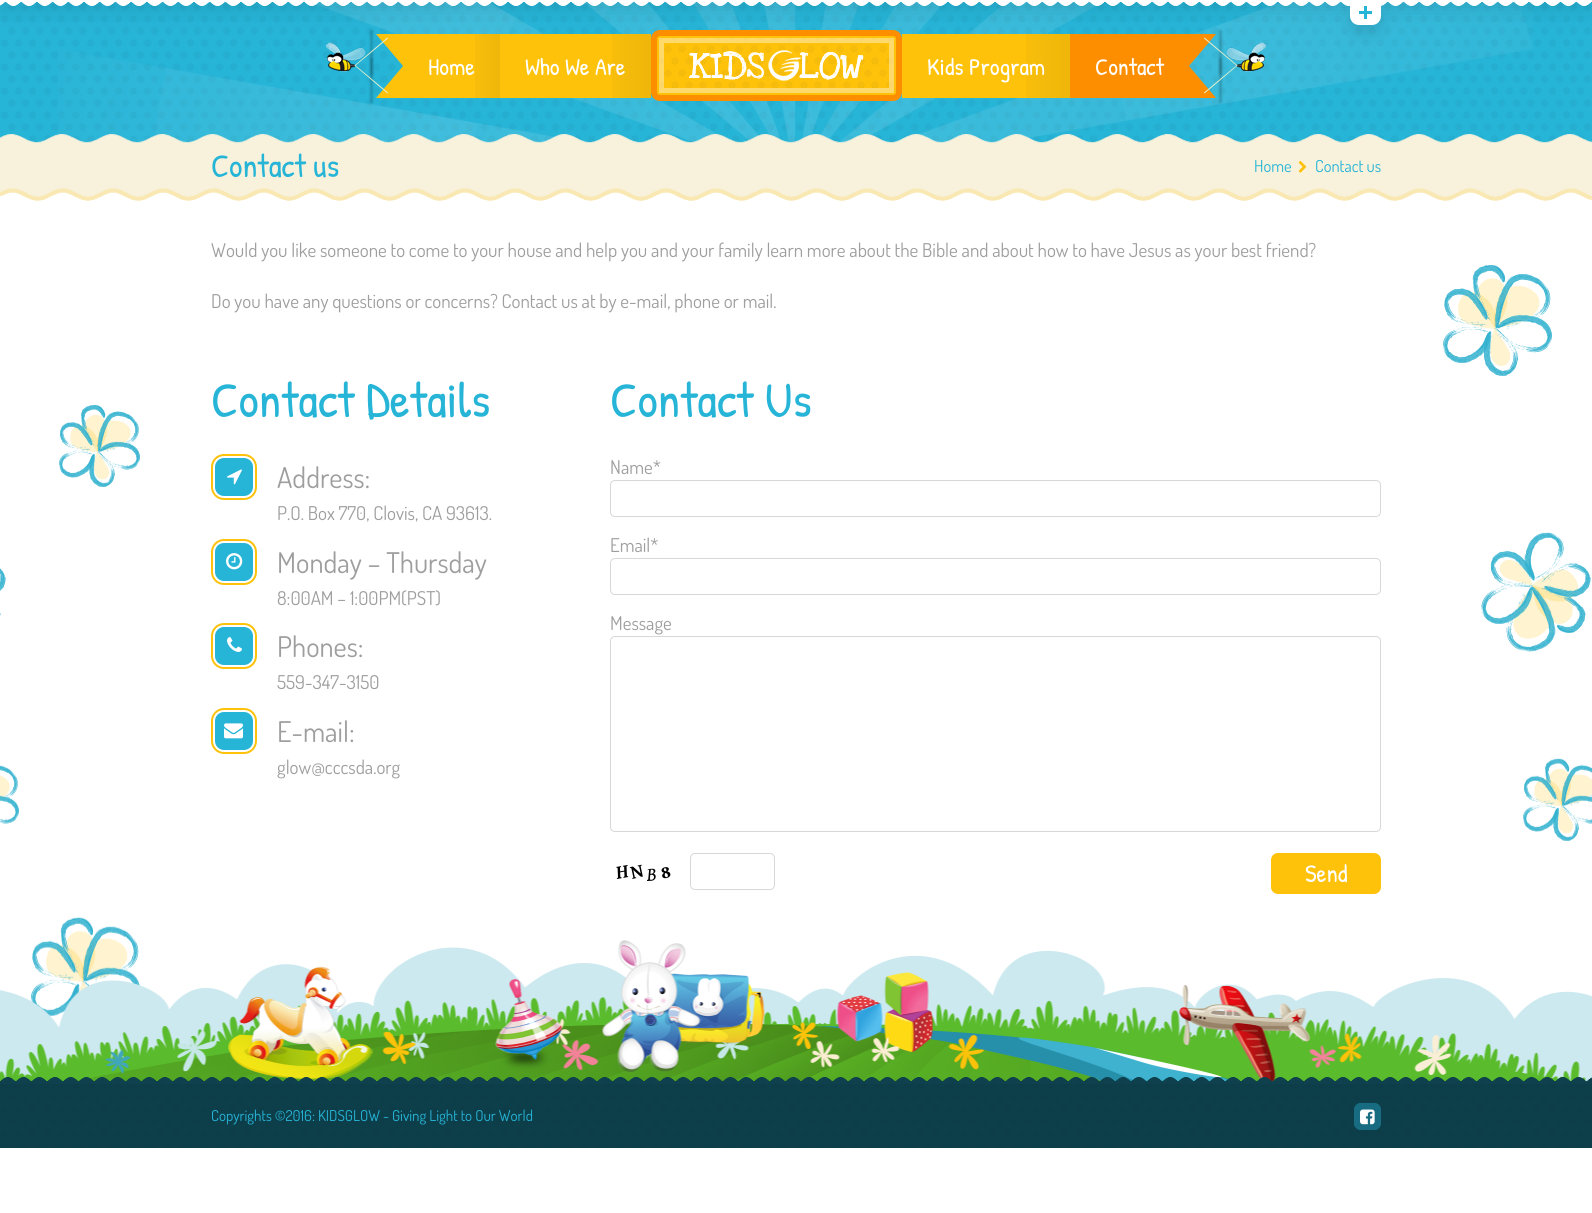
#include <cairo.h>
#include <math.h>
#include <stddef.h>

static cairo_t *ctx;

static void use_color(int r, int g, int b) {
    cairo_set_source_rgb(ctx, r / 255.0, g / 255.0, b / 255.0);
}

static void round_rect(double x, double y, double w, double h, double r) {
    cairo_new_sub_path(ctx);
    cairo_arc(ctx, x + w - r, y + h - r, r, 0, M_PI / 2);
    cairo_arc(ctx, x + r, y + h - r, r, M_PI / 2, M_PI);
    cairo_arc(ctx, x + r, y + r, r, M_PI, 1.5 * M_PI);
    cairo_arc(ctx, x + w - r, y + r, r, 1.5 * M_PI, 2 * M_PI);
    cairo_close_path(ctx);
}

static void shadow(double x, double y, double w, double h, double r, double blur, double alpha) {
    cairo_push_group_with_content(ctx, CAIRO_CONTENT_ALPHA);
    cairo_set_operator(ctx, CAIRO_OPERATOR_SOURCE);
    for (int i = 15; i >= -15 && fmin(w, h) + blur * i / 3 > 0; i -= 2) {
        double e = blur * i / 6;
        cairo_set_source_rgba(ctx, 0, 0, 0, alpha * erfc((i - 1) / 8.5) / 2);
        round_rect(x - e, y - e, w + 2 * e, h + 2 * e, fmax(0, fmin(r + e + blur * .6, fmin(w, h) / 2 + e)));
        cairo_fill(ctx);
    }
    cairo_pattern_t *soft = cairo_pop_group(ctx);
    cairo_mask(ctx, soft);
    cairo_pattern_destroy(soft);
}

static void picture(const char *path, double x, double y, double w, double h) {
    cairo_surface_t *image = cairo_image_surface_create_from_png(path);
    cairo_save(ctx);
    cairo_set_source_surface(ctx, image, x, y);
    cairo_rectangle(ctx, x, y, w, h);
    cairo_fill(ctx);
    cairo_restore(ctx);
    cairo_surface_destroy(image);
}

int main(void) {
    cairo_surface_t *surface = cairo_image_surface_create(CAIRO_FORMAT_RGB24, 1592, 1213);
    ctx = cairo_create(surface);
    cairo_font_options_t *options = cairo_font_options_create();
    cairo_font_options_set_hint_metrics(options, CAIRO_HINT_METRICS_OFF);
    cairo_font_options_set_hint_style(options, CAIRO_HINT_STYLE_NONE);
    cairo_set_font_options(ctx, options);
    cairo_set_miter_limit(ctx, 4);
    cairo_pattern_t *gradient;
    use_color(255, 255, 255);
    cairo_paint(ctx);
    use_color(38, 180, 215);
    cairo_rectangle(ctx, 0, 1, 1592, 142);
    cairo_fill(ctx);
    picture("img3.png", 1, 3, 1590, 140);
    picture("img2.png", 58, 1, 1475, 142);
    use_color(254, 194, 11);
    cairo_rectangle(ctx, 403, 34, 248, 64);
    cairo_fill(ctx);
    picture("img4.png", 326, 42, 40, 30);
    cairo_new_path(ctx);
    cairo_move_to(ctx, 376, 34);
    cairo_line_to(ctx, 403, 34);
    cairo_line_to(ctx, 403, 66);
    cairo_close_path(ctx);
    cairo_fill(ctx);
    cairo_new_path(ctx);
    cairo_move_to(ctx, 403, 98);
    cairo_line_to(ctx, 376, 98);
    cairo_line_to(ctx, 403, 66);
    cairo_close_path(ctx);
    cairo_fill(ctx);
    use_color(0, 0, 0);
    shadow(371, 31, 1, 43, 0, 1.5, 0.3);
    use_color(231, 240, 202);
    cairo_new_path(ctx);
    cairo_move_to(ctx, 355, 66);
    cairo_line_to(ctx, 354.5, 65.5);
    cairo_line_to(ctx, 387.5, 37.5);
    cairo_line_to(ctx, 388, 38.5);
    cairo_close_path(ctx);
    cairo_fill(ctx);
    gradient = cairo_pattern_create_linear(500, 66, 461, 66);
    cairo_pattern_add_color_stop_rgba(gradient, 0, 0, 0, 0, 0.06);
    cairo_pattern_add_color_stop_rgba(gradient, 1, 0, 0, 0, 0);
    cairo_set_source(ctx, gradient);
    cairo_pattern_destroy(gradient);
    cairo_rectangle(ctx, 475, 34, 25, 64);
    cairo_fill(ctx);
    gradient = cairo_pattern_create_linear(651, 66, 590, 66);
    cairo_pattern_add_color_stop_rgba(gradient, 0, 0, 0, 0, 0.06);
    cairo_pattern_add_color_stop_rgba(gradient, 1, 0, 0, 0, 0);
    cairo_set_source(ctx, gradient);
    cairo_pattern_destroy(gradient);
    cairo_rectangle(ctx, 612, 34, 39, 64);
    cairo_fill(ctx);
    use_color(254, 194, 11);
    round_rect(654, 33, 245, 65, 6);
    cairo_fill_preserve(ctx);
    use_color(253, 142, 0);
    cairo_set_line_width(ctx, 6);
    cairo_stroke(ctx);
    picture("img5.png", 659, 38, 235, 51);
    cairo_new_path(ctx);
    cairo_move_to(ctx, 661.5, 40.5);
    cairo_line_to(ctx, 891.5, 40.5);
    cairo_line_to(ctx, 891.5, 90.5);
    cairo_line_to(ctx, 661.5, 90.5);
    cairo_close_path(ctx);
    cairo_set_source_rgba(ctx, 1, 1, 1, 0.4);
    cairo_set_line_width(ctx, 5);
    cairo_stroke(ctx);
    use_color(254, 194, 11);
    cairo_rectangle(ctx, 902, 34, 168, 64);
    cairo_fill(ctx);
    gradient = cairo_pattern_create_linear(1070, 66, 1002, 66);
    cairo_pattern_add_color_stop_rgba(gradient, 0, 0, 0, 0, 0.06);
    cairo_pattern_add_color_stop_rgba(gradient, 1, 0, 0, 0, 0);
    cairo_set_source(ctx, gradient);
    cairo_pattern_destroy(gradient);
    cairo_rectangle(ctx, 1026, 34, 44, 64);
    cairo_fill(ctx);
    use_color(253, 142, 0);
    cairo_rectangle(ctx, 1070, 34, 119, 64);
    cairo_fill(ctx);
    cairo_new_path(ctx);
    cairo_move_to(ctx, 1189, 34);
    cairo_line_to(ctx, 1216, 34);
    cairo_line_to(ctx, 1189, 66);
    cairo_close_path(ctx);
    cairo_fill(ctx);
    cairo_new_path(ctx);
    cairo_move_to(ctx, 1216, 98);
    cairo_line_to(ctx, 1189, 98);
    cairo_line_to(ctx, 1189, 66);
    cairo_close_path(ctx);
    cairo_fill(ctx);
    picture("img7.png", 1226, 42, 40, 30);
    use_color(0, 0, 0);
    shadow(1220, 31, 1, 43, 0, 1.5, 0.3);
    use_color(231, 240, 202);
    cairo_new_path(ctx);
    cairo_move_to(ctx, 1204, 38.5);
    cairo_line_to(ctx, 1204.5, 37.5);
    cairo_line_to(ctx, 1237.5, 65.5);
    cairo_line_to(ctx, 1237, 66);
    cairo_close_path(ctx);
    cairo_fill(ctx);
    use_color(0, 0, 0);
    shadow(0, -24, 1592, 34, 0, 10, 0.1);
    picture("img1.png", 0, 0, 1592, 6);
    shadow(1350, 10, 31, 25, 9, 7.5, 0.1);
    use_color(255, 255, 255);
    cairo_new_path(ctx);
    cairo_move_to(ctx, 1350, 0);
    cairo_line_to(ctx, 1381, 0);
    cairo_line_to(ctx, 1381, 16);
    cairo_curve_to(ctx, 1381, 21, 1377, 25, 1372, 25);
    cairo_line_to(ctx, 1359, 25);
    cairo_curve_to(ctx, 1354, 25, 1350, 21, 1350, 16);
    cairo_close_path(ctx);
    cairo_fill(ctx);
    use_color(38, 180, 215);
    cairo_rectangle(ctx, 1359, 11, 13, 3);
    cairo_fill(ctx);
    cairo_rectangle(ctx, 1364, 6, 3, 13);
    cairo_fill(ctx);
    use_color(0, 0, 0);
    shadow(371, 59, 1, 43, 0, 1.5, 0.3);
    use_color(231, 240, 202);
    cairo_new_path(ctx);
    cairo_move_to(ctx, 388, 92.5);
    cairo_line_to(ctx, 387.5, 93.5);
    cairo_line_to(ctx, 354.5, 65.5);
    cairo_line_to(ctx, 355, 65);
    cairo_close_path(ctx);
    cairo_fill(ctx);
    cairo_select_font_face(ctx, "Patrick Hand", CAIRO_FONT_SLANT_NORMAL, CAIRO_FONT_WEIGHT_NORMAL);
    cairo_set_font_size(ctx, 24);
    use_color(255, 255, 255);
    cairo_move_to(ctx, 428, 75);
    cairo_show_text(ctx, "Home");
    cairo_move_to(ctx, 525, 75);
    cairo_show_text(ctx, "Who We Are");
    picture("img6.png", 689, 50, 175, 31);
    cairo_move_to(ctx, 927, 75);
    cairo_show_text(ctx, "Kids Program");
    cairo_move_to(ctx, 1095, 75);
    cairo_show_text(ctx, "Contact");
    use_color(0, 0, 0);
    shadow(1220, 59, 1, 43, 0, 1.5, 0.3);
    use_color(231, 240, 202);
    cairo_new_path(ctx);
    cairo_move_to(ctx, 1237, 65);
    cairo_line_to(ctx, 1237.5, 65.5);
    cairo_line_to(ctx, 1204.5, 93.5);
    cairo_line_to(ctx, 1204, 92.5);
    cairo_close_path(ctx);
    cairo_fill(ctx);
    picture("img8.png", 0, 134, 1592, 67);
    cairo_set_font_size(ctx, 33);
    use_color(38, 180, 215);
    cairo_move_to(ctx, 211, 177);
    cairo_show_text(ctx, "Contact us");
    cairo_select_font_face(ctx, "Dosis", CAIRO_FONT_SLANT_NORMAL, CAIRO_FONT_WEIGHT_NORMAL);
    cairo_set_font_size(ctx, 16.5);
    cairo_move_to(ctx, 1254, 172);
    cairo_show_text(ctx, "Home");
    picture("img9.png", 1298, 160, 9, 13);
    cairo_move_to(ctx, 1315, 172);
    cairo_show_text(ctx, "Contact us");
    picture("img10.png", 0, 405, 140, 611);
    cairo_set_font_size(ctx, 19);
    use_color(159, 158, 158);
    cairo_move_to(ctx, 211, 257);
    cairo_show_text(ctx, "Would you like someone to come to your house and help you and your family learn more about the Bible and about how to have Jesus as your best friend?");
    cairo_move_to(ctx, 211, 308);
    cairo_show_text(ctx, "Do you have any questions or concerns? Contact us at by e-mail, phone or mail.");
    cairo_select_font_face(ctx, "Patrick Hand", CAIRO_FONT_SLANT_NORMAL, CAIRO_FONT_WEIGHT_NORMAL);
    cairo_set_font_size(ctx, 50);
    use_color(38, 180, 215);
    cairo_move_to(ctx, 211, 417);
    cairo_show_text(ctx, "Contact Details");
    round_rect(215, 458, 38, 38, 9);
    cairo_fill(ctx);
    picture("img11.png", 227, 469, 15, 16);
    round_rect(212, 455, 44, 44, 12);
    use_color(254, 194, 11);
    cairo_set_line_width(ctx, 2);
    cairo_stroke(ctx);
    cairo_select_font_face(ctx, "Dosis", CAIRO_FONT_SLANT_NORMAL, CAIRO_FONT_WEIGHT_NORMAL);
    cairo_set_font_size(ctx, 28.5);
    use_color(159, 158, 158);
    cairo_move_to(ctx, 277, 488);
    cairo_show_text(ctx, "Address:");
    cairo_set_font_size(ctx, 19);
    cairo_move_to(ctx, 277, 520);
    cairo_show_text(ctx, "P.O. Box 770, Clovis, CA 93613.");
    use_color(38, 180, 215);
    round_rect(215, 543, 38, 38, 9);
    cairo_fill(ctx);
    picture("img12.png", 226, 553, 17, 17);
    round_rect(212, 540, 44, 44, 12);
    use_color(254, 194, 11);
    cairo_stroke(ctx);
    cairo_set_font_size(ctx, 28.5);
    use_color(159, 158, 158);
    cairo_move_to(ctx, 277, 573);
    cairo_show_text(ctx, "Monday – Thursday");
    cairo_set_font_size(ctx, 19);
    cairo_move_to(ctx, 277, 605);
    cairo_show_text(ctx, "8:00AM – 1:00PM(PST)");
    use_color(38, 180, 215);
    round_rect(215, 627, 38, 38, 9);
    cairo_fill(ctx);
    picture("img13.png", 227, 637, 15, 15);
    round_rect(212, 624, 44, 44, 12);
    use_color(254, 194, 11);
    cairo_stroke(ctx);
    cairo_set_font_size(ctx, 28.5);
    use_color(159, 158, 158);
    cairo_move_to(ctx, 277, 657);
    cairo_show_text(ctx, "Phones:");
    cairo_set_font_size(ctx, 19);
    cairo_move_to(ctx, 277, 689);
    cairo_show_text(ctx, "559-347-3150");
    use_color(38, 180, 215);
    round_rect(215, 712, 38, 38, 9);
    cairo_fill(ctx);
    picture("img14.png", 224, 723, 19, 16);
    round_rect(212, 709, 44, 44, 12);
    use_color(254, 194, 11);
    cairo_stroke(ctx);
    cairo_set_font_size(ctx, 28.5);
    use_color(159, 158, 158);
    cairo_move_to(ctx, 277, 742);
    cairo_show_text(ctx, "E-mail:");
    cairo_set_font_size(ctx, 19);
    cairo_move_to(ctx, 277, 774);
    cairo_show_text(ctx, "glow@cccsda.org");
    cairo_select_font_face(ctx, "Patrick Hand", CAIRO_FONT_SLANT_NORMAL, CAIRO_FONT_WEIGHT_NORMAL);
    cairo_set_font_size(ctx, 50);
    use_color(38, 180, 215);
    cairo_move_to(ctx, 610, 417);
    cairo_show_text(ctx, "Contact Us");
    cairo_select_font_face(ctx, "Dosis", CAIRO_FONT_SLANT_NORMAL, CAIRO_FONT_WEIGHT_NORMAL);
    cairo_set_font_size(ctx, 19);
    use_color(159, 158, 158);
    cairo_move_to(ctx, 610, 474);
    cairo_show_text(ctx, "Name*");
    round_rect(610.5, 480.5, 770, 36, 4.5);
    use_color(216, 216, 216);
    cairo_set_line_width(ctx, 1);
    cairo_stroke(ctx);
    use_color(159, 158, 158);
    cairo_move_to(ctx, 610, 552);
    cairo_show_text(ctx, "Email*");
    round_rect(610.5, 558.5, 770, 36, 4.5);
    use_color(216, 216, 216);
    cairo_stroke(ctx);
    use_color(159, 158, 158);
    cairo_move_to(ctx, 610, 630);
    cairo_show_text(ctx, "Message");
    round_rect(610.5, 636.5, 770, 195, 4.5);
    use_color(216, 216, 216);
    cairo_stroke(ctx);
    picture("img15.png", 616, 864, 55, 17);
    round_rect(690.5, 853.5, 84, 36, 4.5);
    cairo_stroke(ctx);
    use_color(254, 194, 11);
    round_rect(1271, 853, 110, 41, 7);
    cairo_fill(ctx);
    cairo_select_font_face(ctx, "Patrick Hand", CAIRO_FONT_SLANT_NORMAL, CAIRO_FONT_WEIGHT_NORMAL);
    cairo_set_font_size(ctx, 25);
    use_color(255, 255, 255);
    cairo_move_to(ctx, 1305, 882);
    cairo_show_text(ctx, "Send");
    picture("img16.png", 1443, 265, 149, 576);
    picture("img17.png", 0, 940, 1592, 142);
    use_color(13, 63, 75);
    cairo_rectangle(ctx, 0, 1084, 1592, 64);
    cairo_fill(ctx);
    picture("img18.png", 0, 1084, 1592, 64);
    picture("img19.png", 0, 1077, 1592, 7);
    cairo_select_font_face(ctx, "Dosis", CAIRO_FONT_SLANT_NORMAL, CAIRO_FONT_WEIGHT_NORMAL);
    cairo_set_font_size(ctx, 15);
    use_color(38, 180, 215);
    cairo_move_to(ctx, 211, 1121);
    cairo_show_text(ctx, "Copyrights ©2016: KIDSGLOW - Giving Light to Our World");
    round_rect(1354, 1103, 27, 27, 7);
    cairo_fill(ctx);
    cairo_set_source_rgba(ctx, 0, 0, 0, 0.4);
    round_rect(1354, 1103, 27, 27, 7);
    cairo_fill(ctx);
    picture("img20.png", 1360, 1109, 15, 16);
    cairo_surface_write_to_png(surface, "result.png");
    cairo_font_options_destroy(options);
    cairo_destroy(ctx);
    cairo_surface_destroy(surface);
    return 0;
}
